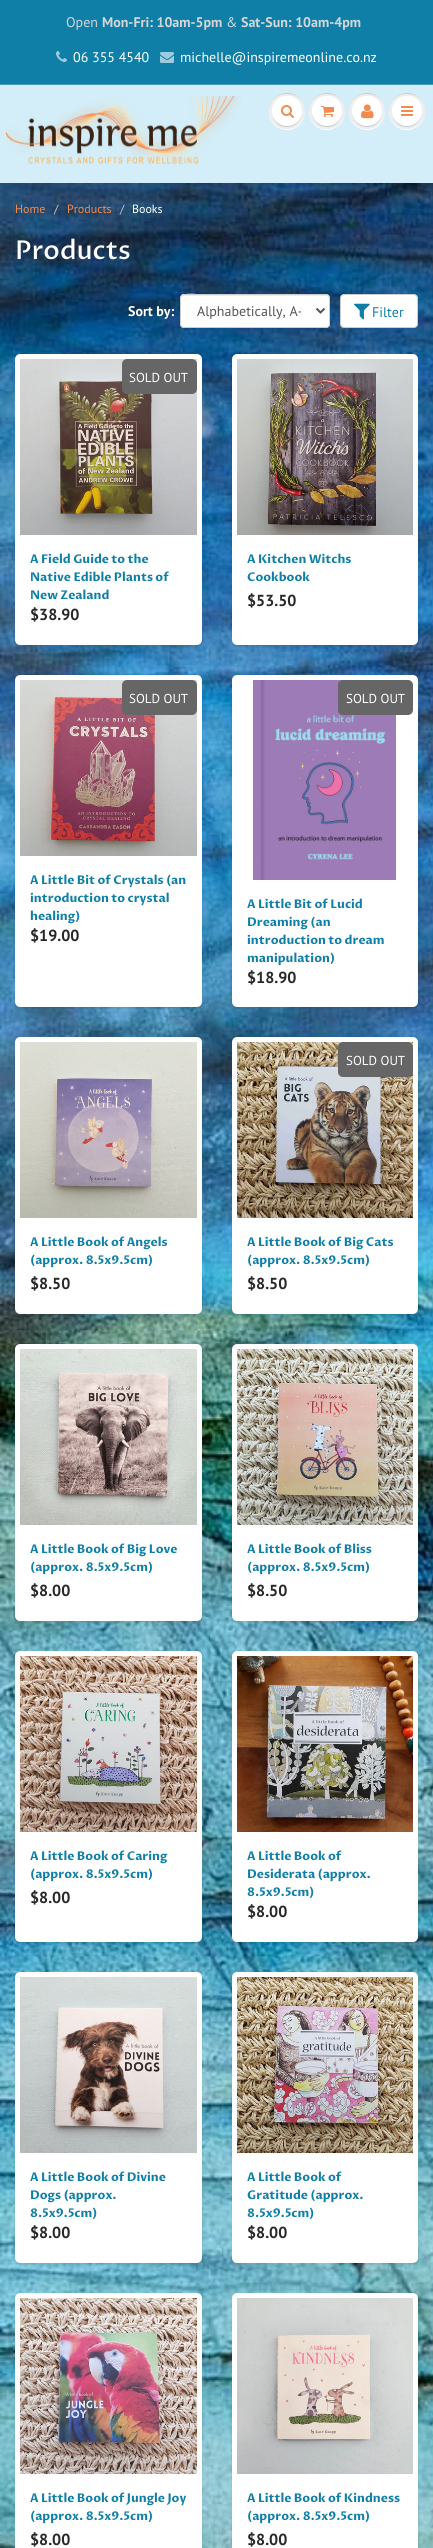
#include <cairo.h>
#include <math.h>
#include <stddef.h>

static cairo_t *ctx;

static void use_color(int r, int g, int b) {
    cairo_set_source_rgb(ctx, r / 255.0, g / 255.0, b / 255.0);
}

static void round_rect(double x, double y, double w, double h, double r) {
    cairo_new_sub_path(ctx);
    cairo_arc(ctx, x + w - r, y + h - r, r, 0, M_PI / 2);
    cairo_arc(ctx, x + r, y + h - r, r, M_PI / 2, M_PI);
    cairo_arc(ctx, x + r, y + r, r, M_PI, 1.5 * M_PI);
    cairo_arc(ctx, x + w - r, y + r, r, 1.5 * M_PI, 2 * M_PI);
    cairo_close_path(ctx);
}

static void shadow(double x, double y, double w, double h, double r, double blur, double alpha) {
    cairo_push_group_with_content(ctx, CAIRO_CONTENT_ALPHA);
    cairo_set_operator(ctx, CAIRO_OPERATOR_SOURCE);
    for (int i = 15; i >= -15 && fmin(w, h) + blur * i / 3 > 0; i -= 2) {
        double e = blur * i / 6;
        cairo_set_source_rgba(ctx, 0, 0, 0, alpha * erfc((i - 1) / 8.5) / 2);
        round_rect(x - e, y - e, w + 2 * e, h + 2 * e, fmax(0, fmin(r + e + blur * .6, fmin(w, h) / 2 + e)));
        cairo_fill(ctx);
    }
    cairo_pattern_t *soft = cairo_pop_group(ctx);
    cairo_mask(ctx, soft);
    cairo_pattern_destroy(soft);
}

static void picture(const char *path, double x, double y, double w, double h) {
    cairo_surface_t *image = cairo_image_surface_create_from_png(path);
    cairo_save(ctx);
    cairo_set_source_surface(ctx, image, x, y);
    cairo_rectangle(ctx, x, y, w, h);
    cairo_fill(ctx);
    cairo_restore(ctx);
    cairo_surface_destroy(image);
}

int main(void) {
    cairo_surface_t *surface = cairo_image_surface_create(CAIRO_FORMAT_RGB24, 433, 2548);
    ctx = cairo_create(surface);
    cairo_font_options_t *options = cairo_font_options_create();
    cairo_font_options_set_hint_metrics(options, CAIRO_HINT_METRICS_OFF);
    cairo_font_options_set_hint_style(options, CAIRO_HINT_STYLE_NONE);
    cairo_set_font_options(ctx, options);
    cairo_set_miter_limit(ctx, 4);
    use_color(16, 127, 168);
    cairo_paint(ctx);
    cairo_select_font_face(ctx, "PT Sans", CAIRO_FONT_SLANT_NORMAL, CAIRO_FONT_WEIGHT_NORMAL);
    cairo_set_font_size(ctx, 14);
    use_color(214, 214, 214);
    cairo_move_to(ctx, 66, 27);
    cairo_show_text(ctx, "Open");
    cairo_select_font_face(ctx, "PT Sans", CAIRO_FONT_SLANT_NORMAL, CAIRO_FONT_WEIGHT_BOLD);
    cairo_move_to(ctx, 102, 27);
    cairo_show_text(ctx, "Mon-Fri: 10am-5pm");
    cairo_select_font_face(ctx, "PT Sans", CAIRO_FONT_SLANT_NORMAL, CAIRO_FONT_WEIGHT_NORMAL);
    cairo_move_to(ctx, 226, 27);
    cairo_show_text(ctx, "&");
    cairo_select_font_face(ctx, "PT Sans", CAIRO_FONT_SLANT_NORMAL, CAIRO_FONT_WEIGHT_BOLD);
    cairo_move_to(ctx, 241, 27);
    cairo_show_text(ctx, "Sat-Sun: 10am-4pm");
    picture("img1.png", 56, 51, 11, 11);
    cairo_select_font_face(ctx, "PT Sans", CAIRO_FONT_SLANT_NORMAL, CAIRO_FONT_WEIGHT_NORMAL);
    use_color(255, 255, 255);
    cairo_move_to(ctx, 73, 62);
    cairo_show_text(ctx, "06 355 4540");
    picture("img2.png", 160, 52, 14, 11);
    cairo_move_to(ctx, 180, 62);
    cairo_show_text(ctx, "michelle@inspiremeonline.co.nz");
    picture("img8.png", 0, 183, 433, 2365);
    use_color(11, 25, 28);
    shadow(0, 86, 433, 99, 0, 1, 0.12);
    use_color(211, 238, 248);
    cairo_rectangle(ctx, 0, 85, 433, 98);
    cairo_fill(ctx);
    use_color(76, 155, 184);
    cairo_rectangle(ctx, 0, 84, 433, 1);
    cairo_fill(ctx);
    picture("img3.png", 6, 96, 236, 68);
    use_color(255, 255, 255);
    cairo_new_path(ctx);
    cairo_move_to(ctx, 305, 111.5);
    cairo_curve_to(ctx, 304.5, 121, 297, 129, 287, 129);
    cairo_curve_to(ctx, 277, 129, 269.5, 121, 269, 111.5);
    cairo_curve_to(ctx, 268.5, 129.5, 292, 137, 302, 122);
    cairo_curve_to(ctx, 304, 119, 305, 115, 305, 111.5);
    cairo_close_path(ctx);
    cairo_fill(ctx);
    use_color(237, 239, 239);
    cairo_arc(ctx, 287, 111, 18, 0, 2 * M_PI);
    cairo_fill(ctx);
    use_color(201, 203, 203);
    cairo_new_path(ctx);
    cairo_move_to(ctx, 287, 94);
    cairo_curve_to(ctx, 299, 94, 305, 102.5, 305, 111.5);
    cairo_curve_to(ctx, 305, 108, 304, 104, 302, 101);
    cairo_curve_to(ctx, 292, 86, 268.5, 93.5, 269, 111.5);
    cairo_curve_to(ctx, 269, 102.5, 275, 94, 287, 94);
    cairo_close_path(ctx);
    cairo_fill(ctx);
    cairo_new_path(ctx);
    cairo_move_to(ctx, 272, 111.5);
    cairo_curve_to(ctx, 272, 114.5, 273, 118, 274.5, 120.5);
    cairo_curve_to(ctx, 283, 133, 302.5, 126.5, 302, 111.5);
    cairo_curve_to(ctx, 301.5, 130.5, 272.5, 130.5, 272, 111.5);
    cairo_close_path(ctx);
    cairo_fill(ctx);
    use_color(255, 255, 255);
    cairo_arc(ctx, 287, 111, 15, 0, 2 * M_PI);
    cairo_fill(ctx);
    cairo_new_path(ctx);
    cairo_move_to(ctx, 287, 97);
    cairo_curve_to(ctx, 297, 97, 302, 104, 302, 111.5);
    cairo_curve_to(ctx, 302, 108.5, 301, 105, 299.5, 102.5);
    cairo_curve_to(ctx, 291, 90, 271.5, 96.5, 272, 111.5);
    cairo_curve_to(ctx, 272, 104, 277, 97, 287, 97);
    cairo_close_path(ctx);
    cairo_fill(ctx);
    picture("img4.png", 281, 105, 13, 13);
    cairo_new_path(ctx);
    cairo_move_to(ctx, 345, 111.5);
    cairo_curve_to(ctx, 344.5, 121, 337, 129, 327, 129);
    cairo_curve_to(ctx, 317, 129, 309.5, 121, 309, 111.5);
    cairo_curve_to(ctx, 309, 115, 310, 119, 312, 122);
    cairo_curve_to(ctx, 322, 137, 345.5, 129.5, 345, 111.5);
    cairo_close_path(ctx);
    cairo_fill(ctx);
    use_color(237, 239, 239);
    cairo_arc(ctx, 327, 111, 18, 0, 2 * M_PI);
    cairo_fill(ctx);
    use_color(201, 203, 203);
    cairo_new_path(ctx);
    cairo_move_to(ctx, 327, 94);
    cairo_curve_to(ctx, 339, 94, 345, 102.5, 345, 111.5);
    cairo_curve_to(ctx, 345, 108, 344, 104, 342, 101);
    cairo_curve_to(ctx, 332, 86, 308.5, 93.5, 309, 111.5);
    cairo_curve_to(ctx, 309, 102.5, 315, 94, 327, 94);
    cairo_close_path(ctx);
    cairo_fill(ctx);
    cairo_new_path(ctx);
    cairo_move_to(ctx, 312, 111.5);
    cairo_curve_to(ctx, 311.5, 126.5, 331, 133, 339.5, 120.5);
    cairo_curve_to(ctx, 341, 118, 342, 114.5, 342, 111.5);
    cairo_curve_to(ctx, 341.5, 130.5, 312.5, 130.5, 312, 111.5);
    cairo_close_path(ctx);
    cairo_fill(ctx);
    use_color(255, 255, 255);
    cairo_arc(ctx, 327, 111, 15, 0, 2 * M_PI);
    cairo_fill(ctx);
    cairo_new_path(ctx);
    cairo_move_to(ctx, 327, 97);
    cairo_curve_to(ctx, 337, 97, 342, 104, 342, 111.5);
    cairo_curve_to(ctx, 342, 108.5, 341, 105, 339.5, 102.5);
    cairo_curve_to(ctx, 331, 90, 311.5, 96.5, 312, 111.5);
    cairo_curve_to(ctx, 312, 104, 317, 97, 327, 97);
    cairo_close_path(ctx);
    cairo_fill(ctx);
    picture("img5.png", 321, 106, 13, 11);
    cairo_new_path(ctx);
    cairo_move_to(ctx, 385, 111.5);
    cairo_curve_to(ctx, 384.5, 121, 377, 129, 367, 129);
    cairo_curve_to(ctx, 357, 129, 349.5, 121, 349, 111.5);
    cairo_curve_to(ctx, 348.5, 129.5, 372, 137, 382, 122);
    cairo_curve_to(ctx, 384, 119, 385, 115, 385, 111.5);
    cairo_close_path(ctx);
    cairo_fill(ctx);
    use_color(237, 239, 239);
    cairo_arc(ctx, 367, 111, 18, 0, 2 * M_PI);
    cairo_fill(ctx);
    use_color(201, 203, 203);
    cairo_new_path(ctx);
    cairo_move_to(ctx, 367, 94);
    cairo_curve_to(ctx, 379, 94, 385, 102.5, 385, 111.5);
    cairo_curve_to(ctx, 385, 108, 384, 104, 382, 101);
    cairo_curve_to(ctx, 372, 86, 348.5, 93.5, 349, 111.5);
    cairo_curve_to(ctx, 349, 102.5, 355, 94, 367, 94);
    cairo_close_path(ctx);
    cairo_fill(ctx);
    cairo_new_path(ctx);
    cairo_move_to(ctx, 352, 111.5);
    cairo_curve_to(ctx, 351.5, 126.5, 371, 133, 379.5, 120.5);
    cairo_curve_to(ctx, 381, 118, 382, 114.5, 382, 111.5);
    cairo_curve_to(ctx, 381.5, 130.5, 352.5, 130.5, 352, 111.5);
    cairo_close_path(ctx);
    cairo_fill(ctx);
    use_color(255, 255, 255);
    cairo_arc(ctx, 367, 111, 15, 0, 2 * M_PI);
    cairo_fill(ctx);
    cairo_new_path(ctx);
    cairo_move_to(ctx, 367, 97);
    cairo_curve_to(ctx, 377, 97, 382, 104, 382, 111.5);
    cairo_curve_to(ctx, 382, 108.5, 381, 105, 379.5, 102.5);
    cairo_curve_to(ctx, 371, 90, 351.5, 96.5, 352, 111.5);
    cairo_curve_to(ctx, 352, 104, 357, 97, 367, 97);
    cairo_close_path(ctx);
    cairo_fill(ctx);
    picture("img6.png", 361, 104, 13, 15);
    cairo_new_path(ctx);
    cairo_move_to(ctx, 425, 111.5);
    cairo_curve_to(ctx, 424.5, 121, 417, 129, 407, 129);
    cairo_curve_to(ctx, 397, 129, 389.5, 121, 389, 111.5);
    cairo_curve_to(ctx, 389, 115, 390, 119, 392, 122);
    cairo_curve_to(ctx, 402, 137, 425.5, 129.5, 425, 111.5);
    cairo_close_path(ctx);
    cairo_fill(ctx);
    use_color(237, 239, 239);
    cairo_arc(ctx, 407, 111, 18, 0, 2 * M_PI);
    cairo_fill(ctx);
    use_color(201, 203, 203);
    cairo_new_path(ctx);
    cairo_move_to(ctx, 407, 94);
    cairo_curve_to(ctx, 419, 94, 425, 102.5, 425, 111.5);
    cairo_curve_to(ctx, 425, 108, 424, 104, 422, 101);
    cairo_curve_to(ctx, 412, 86, 388.5, 93.5, 389, 111.5);
    cairo_curve_to(ctx, 389, 102.5, 395, 94, 407, 94);
    cairo_close_path(ctx);
    cairo_fill(ctx);
    cairo_new_path(ctx);
    cairo_move_to(ctx, 392, 111.5);
    cairo_curve_to(ctx, 392, 114.5, 393, 118, 394.5, 120.5);
    cairo_curve_to(ctx, 403, 133, 422.5, 126.5, 422, 111.5);
    cairo_curve_to(ctx, 421.5, 130.5, 392.5, 130.5, 392, 111.5);
    cairo_close_path(ctx);
    cairo_fill(ctx);
    use_color(255, 255, 255);
    cairo_arc(ctx, 407, 111, 15, 0, 2 * M_PI);
    cairo_fill(ctx);
    cairo_new_path(ctx);
    cairo_move_to(ctx, 407, 97);
    cairo_curve_to(ctx, 417, 97, 422, 104, 422, 111.5);
    cairo_curve_to(ctx, 422, 108.5, 421, 105, 419.5, 102.5);
    cairo_curve_to(ctx, 411, 90, 391.5, 96.5, 392, 111.5);
    cairo_curve_to(ctx, 392, 104, 397, 97, 407, 97);
    cairo_close_path(ctx);
    cairo_fill(ctx);
    picture("img7.png", 401, 106, 12, 10);
    cairo_set_font_size(ctx, 12);
    use_color(244, 138, 77);
    cairo_move_to(ctx, 15, 213);
    cairo_show_text(ctx, "Home");
    use_color(204, 204, 204);
    cairo_move_to(ctx, 54, 213);
    cairo_show_text(ctx, "/");
    use_color(244, 138, 77);
    cairo_move_to(ctx, 67, 213);
    cairo_show_text(ctx, "Products");
    use_color(204, 204, 204);
    cairo_move_to(ctx, 120, 213);
    cairo_show_text(ctx, "/");
    use_color(255, 255, 255);
    cairo_move_to(ctx, 132, 213);
    cairo_show_text(ctx, "Books");
    cairo_select_font_face(ctx, "Proza Libre Medium", CAIRO_FONT_SLANT_NORMAL, CAIRO_FONT_WEIGHT_NORMAL);
    cairo_set_font_size(ctx, 26);
    cairo_move_to(ctx, 15, 259);
    cairo_show_text(ctx, "Products");
    cairo_select_font_face(ctx, "PT Sans", CAIRO_FONT_SLANT_NORMAL, CAIRO_FONT_WEIGHT_BOLD);
    cairo_set_font_size(ctx, 14);
    cairo_move_to(ctx, 128, 316);
    cairo_show_text(ctx, "Sort by:");
    round_rect(180, 294, 150, 34, 4);
    cairo_fill(ctx);
    use_color(236, 236, 236);
    cairo_new_path(ctx);
    cairo_move_to(ctx, 184, 296);
    cairo_line_to(ctx, 326, 296);
    cairo_curve_to(ctx, 328, 296, 329, 297, 329, 299);
    cairo_curve_to(ctx, 329, 297, 329, 296, 327, 295);
    cairo_line_to(ctx, 208, 295);
    cairo_curve_to(ctx, 200, 295, 181, 290, 181, 299);
    cairo_curve_to(ctx, 181, 297, 182, 296, 184, 296);
    cairo_close_path(ctx);
    cairo_fill(ctx);
    round_rect(180.5, 294.5, 149, 33, 3.5);
    use_color(204, 204, 204);
    cairo_set_line_width(ctx, 1);
    cairo_stroke(ctx);
    cairo_new_path(ctx);
    cairo_move_to(ctx, 316.5, 308.5);
    cairo_line_to(ctx, 320.5, 312.5);
    cairo_line_to(ctx, 324.5, 308.5);
    use_color(85, 85, 85);
    cairo_set_line_width(ctx, 2);
    cairo_stroke(ctx);
    cairo_save(ctx);
    cairo_rectangle(ctx, 197, 301, 104, 20);
    cairo_clip(ctx);
    cairo_select_font_face(ctx, "PT Sans", CAIRO_FONT_SLANT_NORMAL, CAIRO_FONT_WEIGHT_NORMAL);
    cairo_move_to(ctx, 197, 316);
    cairo_show_text(ctx, "Alphabetically, A-");
    cairo_restore(ctx);
    use_color(255, 255, 255);
    round_rect(340.5, 294.5, 77, 33, 3.5);
    cairo_fill_preserve(ctx);
    use_color(204, 204, 204);
    cairo_set_line_width(ctx, 1);
    cairo_stroke(ctx);
    picture("img9.png", 354, 303, 16, 17);
    cairo_select_font_face(ctx, "PT Sans", CAIRO_FONT_SLANT_NORMAL, CAIRO_FONT_WEIGHT_NORMAL);
    use_color(16, 127, 168);
    cairo_move_to(ctx, 372, 317);
    cairo_show_text(ctx, "Filter");
    use_color(11, 25, 28);
    shadow(15, 356, 187, 291, 5, 1, 0.1);
    use_color(255, 255, 255);
    round_rect(17.5, 356.5, 182, 286, 2.5);
    cairo_fill_preserve(ctx);
    cairo_set_line_width(ctx, 5);
    cairo_stroke(ctx);
    picture("img10.png", 20, 359, 177, 176);
    use_color(102, 102, 102);
    round_rect(122, 359, 75, 35, 5);
    cairo_fill(ctx);
    cairo_set_font_size(ctx, 13);
    use_color(255, 255, 255);
    cairo_move_to(ctx, 129, 382);
    cairo_show_text(ctx, "SOLD OUT");
    cairo_select_font_face(ctx, "Proza Libre", CAIRO_FONT_SLANT_NORMAL, CAIRO_FONT_WEIGHT_BOLD);
    cairo_set_font_size(ctx, 12);
    use_color(16, 127, 168);
    cairo_move_to(ctx, 30, 563);
    cairo_show_text(ctx, "A Field Guide to the");
    cairo_move_to(ctx, 30, 581);
    cairo_show_text(ctx, "Native Edible Plants of");
    cairo_move_to(ctx, 30, 599);
    cairo_show_text(ctx, "New Zealand");
    cairo_select_font_face(ctx, "PT Sans", CAIRO_FONT_SLANT_NORMAL, CAIRO_FONT_WEIGHT_BOLD);
    cairo_set_font_size(ctx, 16);
    use_color(40, 40, 39);
    cairo_move_to(ctx, 30, 620);
    cairo_show_text(ctx, "$38.90");
    use_color(11, 25, 28);
    shadow(232, 356, 186, 291, 5, 1, 0.1);
    use_color(255, 255, 255);
    round_rect(234.5, 356.5, 181, 286, 2.5);
    cairo_fill_preserve(ctx);
    cairo_stroke(ctx);
    picture("img11.png", 237, 359, 176, 176);
    cairo_select_font_face(ctx, "Proza Libre", CAIRO_FONT_SLANT_NORMAL, CAIRO_FONT_WEIGHT_BOLD);
    cairo_set_font_size(ctx, 12);
    use_color(16, 127, 168);
    cairo_move_to(ctx, 247, 563);
    cairo_show_text(ctx, "A Kitchen Witchs");
    cairo_move_to(ctx, 247, 581);
    cairo_show_text(ctx, "Cookbook");
    cairo_select_font_face(ctx, "PT Sans", CAIRO_FONT_SLANT_NORMAL, CAIRO_FONT_WEIGHT_BOLD);
    cairo_set_font_size(ctx, 16);
    use_color(40, 40, 39);
    cairo_move_to(ctx, 247, 606);
    cairo_show_text(ctx, "$53.50");
    use_color(11, 25, 28);
    shadow(15, 677, 187, 332, 5, 1, 0.1);
    use_color(255, 255, 255);
    round_rect(17.5, 677.5, 182, 327, 2.5);
    cairo_fill_preserve(ctx);
    cairo_stroke(ctx);
    picture("img12.png", 20, 680, 177, 176);
    use_color(102, 102, 102);
    round_rect(122, 680, 75, 35, 5);
    cairo_fill(ctx);
    cairo_select_font_face(ctx, "PT Sans", CAIRO_FONT_SLANT_NORMAL, CAIRO_FONT_WEIGHT_NORMAL);
    cairo_set_font_size(ctx, 13);
    use_color(255, 255, 255);
    cairo_move_to(ctx, 129, 703);
    cairo_show_text(ctx, "SOLD OUT");
    cairo_select_font_face(ctx, "Proza Libre", CAIRO_FONT_SLANT_NORMAL, CAIRO_FONT_WEIGHT_BOLD);
    cairo_set_font_size(ctx, 12);
    use_color(16, 127, 168);
    cairo_move_to(ctx, 30, 884);
    cairo_show_text(ctx, "A Little Bit of Crystals (an");
    cairo_move_to(ctx, 30, 902);
    cairo_show_text(ctx, "introduction to crystal");
    cairo_move_to(ctx, 30, 920);
    cairo_show_text(ctx, "healing)");
    cairo_select_font_face(ctx, "PT Sans", CAIRO_FONT_SLANT_NORMAL, CAIRO_FONT_WEIGHT_BOLD);
    cairo_set_font_size(ctx, 16);
    use_color(40, 40, 39);
    cairo_move_to(ctx, 30, 941);
    cairo_show_text(ctx, "$19.00");
    use_color(11, 25, 28);
    shadow(232, 677, 186, 332, 5, 1, 0.1);
    use_color(255, 255, 255);
    round_rect(234.5, 677.5, 181, 327, 2.5);
    cairo_fill_preserve(ctx);
    cairo_stroke(ctx);
    picture("img13.png", 253, 680, 143, 200);
    use_color(102, 102, 102);
    round_rect(338, 680, 75, 35, 5);
    cairo_fill(ctx);
    cairo_select_font_face(ctx, "PT Sans", CAIRO_FONT_SLANT_NORMAL, CAIRO_FONT_WEIGHT_NORMAL);
    cairo_set_font_size(ctx, 13);
    use_color(255, 255, 255);
    cairo_move_to(ctx, 346, 703);
    cairo_show_text(ctx, "SOLD OUT");
    cairo_select_font_face(ctx, "Proza Libre", CAIRO_FONT_SLANT_NORMAL, CAIRO_FONT_WEIGHT_BOLD);
    cairo_set_font_size(ctx, 12);
    use_color(16, 127, 168);
    cairo_move_to(ctx, 247, 908);
    cairo_show_text(ctx, "A Little Bit of Lucid");
    cairo_move_to(ctx, 247, 926);
    cairo_show_text(ctx, "Dreaming (an");
    cairo_move_to(ctx, 247, 944);
    cairo_show_text(ctx, "introduction to dream");
    cairo_move_to(ctx, 247, 962);
    cairo_show_text(ctx, "manipulation)");
    cairo_select_font_face(ctx, "PT Sans", CAIRO_FONT_SLANT_NORMAL, CAIRO_FONT_WEIGHT_BOLD);
    cairo_set_font_size(ctx, 16);
    use_color(40, 40, 39);
    cairo_move_to(ctx, 247, 983);
    cairo_show_text(ctx, "$18.90");
    use_color(11, 25, 28);
    shadow(15, 1039, 187, 277, 5, 1, 0.1);
    use_color(255, 255, 255);
    round_rect(17.5, 1039.5, 182, 272, 2.5);
    cairo_fill_preserve(ctx);
    cairo_stroke(ctx);
    picture("img14.png", 20, 1042, 177, 176);
    cairo_select_font_face(ctx, "Proza Libre", CAIRO_FONT_SLANT_NORMAL, CAIRO_FONT_WEIGHT_BOLD);
    cairo_set_font_size(ctx, 12);
    use_color(16, 127, 168);
    cairo_move_to(ctx, 30, 1246);
    cairo_show_text(ctx, "A Little Book of Angels");
    cairo_move_to(ctx, 30, 1264);
    cairo_show_text(ctx, "(approx. 8.5x9.5cm)");
    cairo_select_font_face(ctx, "PT Sans", CAIRO_FONT_SLANT_NORMAL, CAIRO_FONT_WEIGHT_BOLD);
    cairo_set_font_size(ctx, 16);
    use_color(40, 40, 39);
    cairo_move_to(ctx, 30, 1289);
    cairo_show_text(ctx, "$8.50");
    use_color(11, 25, 28);
    shadow(232, 1039, 186, 277, 5, 1, 0.1);
    use_color(255, 255, 255);
    round_rect(234.5, 1039.5, 181, 272, 2.5);
    cairo_fill_preserve(ctx);
    cairo_stroke(ctx);
    picture("img15.png", 237, 1042, 176, 176);
    use_color(102, 102, 102);
    round_rect(338, 1042, 75, 35, 5);
    cairo_fill(ctx);
    cairo_select_font_face(ctx, "PT Sans", CAIRO_FONT_SLANT_NORMAL, CAIRO_FONT_WEIGHT_NORMAL);
    cairo_set_font_size(ctx, 13);
    use_color(255, 255, 255);
    cairo_move_to(ctx, 346, 1065);
    cairo_show_text(ctx, "SOLD OUT");
    cairo_select_font_face(ctx, "Proza Libre", CAIRO_FONT_SLANT_NORMAL, CAIRO_FONT_WEIGHT_BOLD);
    cairo_set_font_size(ctx, 12);
    use_color(16, 127, 168);
    cairo_move_to(ctx, 247, 1246);
    cairo_show_text(ctx, "A Little Book of Big Cats");
    cairo_move_to(ctx, 247, 1264);
    cairo_show_text(ctx, "(approx. 8.5x9.5cm)");
    cairo_select_font_face(ctx, "PT Sans", CAIRO_FONT_SLANT_NORMAL, CAIRO_FONT_WEIGHT_BOLD);
    cairo_set_font_size(ctx, 16);
    use_color(40, 40, 39);
    cairo_move_to(ctx, 247, 1289);
    cairo_show_text(ctx, "$8.50");
    use_color(11, 25, 28);
    shadow(15, 1346, 187, 277, 5, 1, 0.1);
    use_color(255, 255, 255);
    round_rect(17.5, 1346.5, 182, 272, 2.5);
    cairo_fill_preserve(ctx);
    cairo_stroke(ctx);
    picture("img16.png", 20, 1349, 177, 176);
    cairo_select_font_face(ctx, "Proza Libre", CAIRO_FONT_SLANT_NORMAL, CAIRO_FONT_WEIGHT_BOLD);
    cairo_set_font_size(ctx, 12);
    use_color(16, 127, 168);
    cairo_move_to(ctx, 30, 1553);
    cairo_show_text(ctx, "A Little Book of Big Love");
    cairo_move_to(ctx, 30, 1571);
    cairo_show_text(ctx, "(approx. 8.5x9.5cm)");
    cairo_select_font_face(ctx, "PT Sans", CAIRO_FONT_SLANT_NORMAL, CAIRO_FONT_WEIGHT_BOLD);
    cairo_set_font_size(ctx, 16);
    use_color(40, 40, 39);
    cairo_move_to(ctx, 30, 1596);
    cairo_show_text(ctx, "$8.00");
    use_color(11, 25, 28);
    shadow(232, 1346, 186, 277, 5, 1, 0.1);
    use_color(255, 255, 255);
    round_rect(234.5, 1346.5, 181, 272, 2.5);
    cairo_fill_preserve(ctx);
    cairo_stroke(ctx);
    picture("img17.png", 237, 1349, 176, 176);
    cairo_select_font_face(ctx, "Proza Libre", CAIRO_FONT_SLANT_NORMAL, CAIRO_FONT_WEIGHT_BOLD);
    cairo_set_font_size(ctx, 12);
    use_color(16, 127, 168);
    cairo_move_to(ctx, 247, 1553);
    cairo_show_text(ctx, "A Little Book of Bliss");
    cairo_move_to(ctx, 247, 1571);
    cairo_show_text(ctx, "(approx. 8.5x9.5cm)");
    cairo_select_font_face(ctx, "PT Sans", CAIRO_FONT_SLANT_NORMAL, CAIRO_FONT_WEIGHT_BOLD);
    cairo_set_font_size(ctx, 16);
    use_color(40, 40, 39);
    cairo_move_to(ctx, 247, 1596);
    cairo_show_text(ctx, "$8.50");
    use_color(11, 25, 28);
    shadow(15, 1653, 187, 291, 5, 1, 0.1);
    use_color(255, 255, 255);
    round_rect(17.5, 1653.5, 182, 286, 2.5);
    cairo_fill_preserve(ctx);
    cairo_stroke(ctx);
    picture("img18.png", 20, 1656, 177, 176);
    cairo_select_font_face(ctx, "Proza Libre", CAIRO_FONT_SLANT_NORMAL, CAIRO_FONT_WEIGHT_BOLD);
    cairo_set_font_size(ctx, 12);
    use_color(16, 127, 168);
    cairo_move_to(ctx, 30, 1860);
    cairo_show_text(ctx, "A Little Book of Caring");
    cairo_move_to(ctx, 30, 1878);
    cairo_show_text(ctx, "(approx. 8.5x9.5cm)");
    cairo_select_font_face(ctx, "PT Sans", CAIRO_FONT_SLANT_NORMAL, CAIRO_FONT_WEIGHT_BOLD);
    cairo_set_font_size(ctx, 16);
    use_color(40, 40, 39);
    cairo_move_to(ctx, 30, 1903);
    cairo_show_text(ctx, "$8.00");
    use_color(11, 25, 28);
    shadow(232, 1653, 186, 291, 5, 1, 0.1);
    use_color(255, 255, 255);
    round_rect(234.5, 1653.5, 181, 286, 2.5);
    cairo_fill_preserve(ctx);
    cairo_stroke(ctx);
    picture("img19.png", 237, 1656, 176, 176);
    cairo_select_font_face(ctx, "Proza Libre", CAIRO_FONT_SLANT_NORMAL, CAIRO_FONT_WEIGHT_BOLD);
    cairo_set_font_size(ctx, 12);
    use_color(16, 127, 168);
    cairo_move_to(ctx, 247, 1860);
    cairo_show_text(ctx, "A Little Book of");
    cairo_move_to(ctx, 247, 1878);
    cairo_show_text(ctx, "Desiderata (approx.");
    cairo_move_to(ctx, 247, 1896);
    cairo_show_text(ctx, "8.5x9.5cm)");
    cairo_select_font_face(ctx, "PT Sans", CAIRO_FONT_SLANT_NORMAL, CAIRO_FONT_WEIGHT_BOLD);
    cairo_set_font_size(ctx, 16);
    use_color(40, 40, 39);
    cairo_move_to(ctx, 247, 1917);
    cairo_show_text(ctx, "$8.00");
    use_color(11, 25, 28);
    shadow(15, 1974, 187, 291, 5, 1, 0.1);
    use_color(255, 255, 255);
    round_rect(17.5, 1974.5, 182, 286, 2.5);
    cairo_fill_preserve(ctx);
    cairo_stroke(ctx);
    picture("img20.png", 20, 1977, 177, 176);
    cairo_select_font_face(ctx, "Proza Libre", CAIRO_FONT_SLANT_NORMAL, CAIRO_FONT_WEIGHT_BOLD);
    cairo_set_font_size(ctx, 12);
    use_color(16, 127, 168);
    cairo_move_to(ctx, 30, 2181);
    cairo_show_text(ctx, "A Little Book of Divine");
    cairo_move_to(ctx, 30, 2199);
    cairo_show_text(ctx, "Dogs (approx.");
    cairo_move_to(ctx, 30, 2217);
    cairo_show_text(ctx, "8.5x9.5cm)");
    cairo_select_font_face(ctx, "PT Sans", CAIRO_FONT_SLANT_NORMAL, CAIRO_FONT_WEIGHT_BOLD);
    cairo_set_font_size(ctx, 16);
    use_color(40, 40, 39);
    cairo_move_to(ctx, 30, 2238);
    cairo_show_text(ctx, "$8.00");
    use_color(11, 25, 28);
    shadow(232, 1974, 186, 291, 5, 1, 0.1);
    use_color(255, 255, 255);
    round_rect(234.5, 1974.5, 181, 286, 2.5);
    cairo_fill_preserve(ctx);
    cairo_stroke(ctx);
    picture("img21.png", 237, 1977, 176, 176);
    cairo_select_font_face(ctx, "Proza Libre", CAIRO_FONT_SLANT_NORMAL, CAIRO_FONT_WEIGHT_BOLD);
    cairo_set_font_size(ctx, 12);
    use_color(16, 127, 168);
    cairo_move_to(ctx, 247, 2181);
    cairo_show_text(ctx, "A Little Book of");
    cairo_move_to(ctx, 247, 2199);
    cairo_show_text(ctx, "Gratitude (approx.");
    cairo_move_to(ctx, 247, 2217);
    cairo_show_text(ctx, "8.5x9.5cm)");
    cairo_select_font_face(ctx, "PT Sans", CAIRO_FONT_SLANT_NORMAL, CAIRO_FONT_WEIGHT_BOLD);
    cairo_set_font_size(ctx, 16);
    use_color(40, 40, 39);
    cairo_move_to(ctx, 247, 2238);
    cairo_show_text(ctx, "$8.00");
    use_color(11, 25, 28);
    shadow(15, 2295, 187, 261, 5, 1, 0.1);
    use_color(255, 255, 255);
    round_rect(17.5, 2295.5, 182, 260, 2.5);
    cairo_fill_preserve(ctx);
    cairo_stroke(ctx);
    picture("img22.png", 20, 2298, 177, 176);
    cairo_select_font_face(ctx, "Proza Libre", CAIRO_FONT_SLANT_NORMAL, CAIRO_FONT_WEIGHT_BOLD);
    cairo_set_font_size(ctx, 12);
    use_color(16, 127, 168);
    cairo_move_to(ctx, 30, 2502);
    cairo_show_text(ctx, "A Little Book of Jungle Joy");
    cairo_move_to(ctx, 30, 2520);
    cairo_show_text(ctx, "(approx. 8.5x9.5cm)");
    cairo_select_font_face(ctx, "PT Sans", CAIRO_FONT_SLANT_NORMAL, CAIRO_FONT_WEIGHT_BOLD);
    cairo_set_font_size(ctx, 16);
    use_color(40, 40, 39);
    cairo_move_to(ctx, 30, 2545);
    cairo_show_text(ctx, "$8.00");
    use_color(11, 25, 28);
    shadow(232, 2295, 186, 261, 5, 1, 0.1);
    use_color(255, 255, 255);
    round_rect(234.5, 2295.5, 181, 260, 2.5);
    cairo_fill_preserve(ctx);
    cairo_stroke(ctx);
    picture("img23.png", 237, 2298, 176, 176);
    cairo_select_font_face(ctx, "Proza Libre", CAIRO_FONT_SLANT_NORMAL, CAIRO_FONT_WEIGHT_BOLD);
    cairo_set_font_size(ctx, 12);
    use_color(16, 127, 168);
    cairo_move_to(ctx, 247, 2502);
    cairo_show_text(ctx, "A Little Book of Kindness");
    cairo_move_to(ctx, 247, 2520);
    cairo_show_text(ctx, "(approx. 8.5x9.5cm)");
    cairo_select_font_face(ctx, "PT Sans", CAIRO_FONT_SLANT_NORMAL, CAIRO_FONT_WEIGHT_BOLD);
    cairo_set_font_size(ctx, 16);
    use_color(40, 40, 39);
    cairo_move_to(ctx, 247, 2545);
    cairo_show_text(ctx, "$8.00");
    cairo_surface_write_to_png(surface, "result.png");
    cairo_font_options_destroy(options);
    cairo_destroy(ctx);
    cairo_surface_destroy(surface);
    return 0;
}
